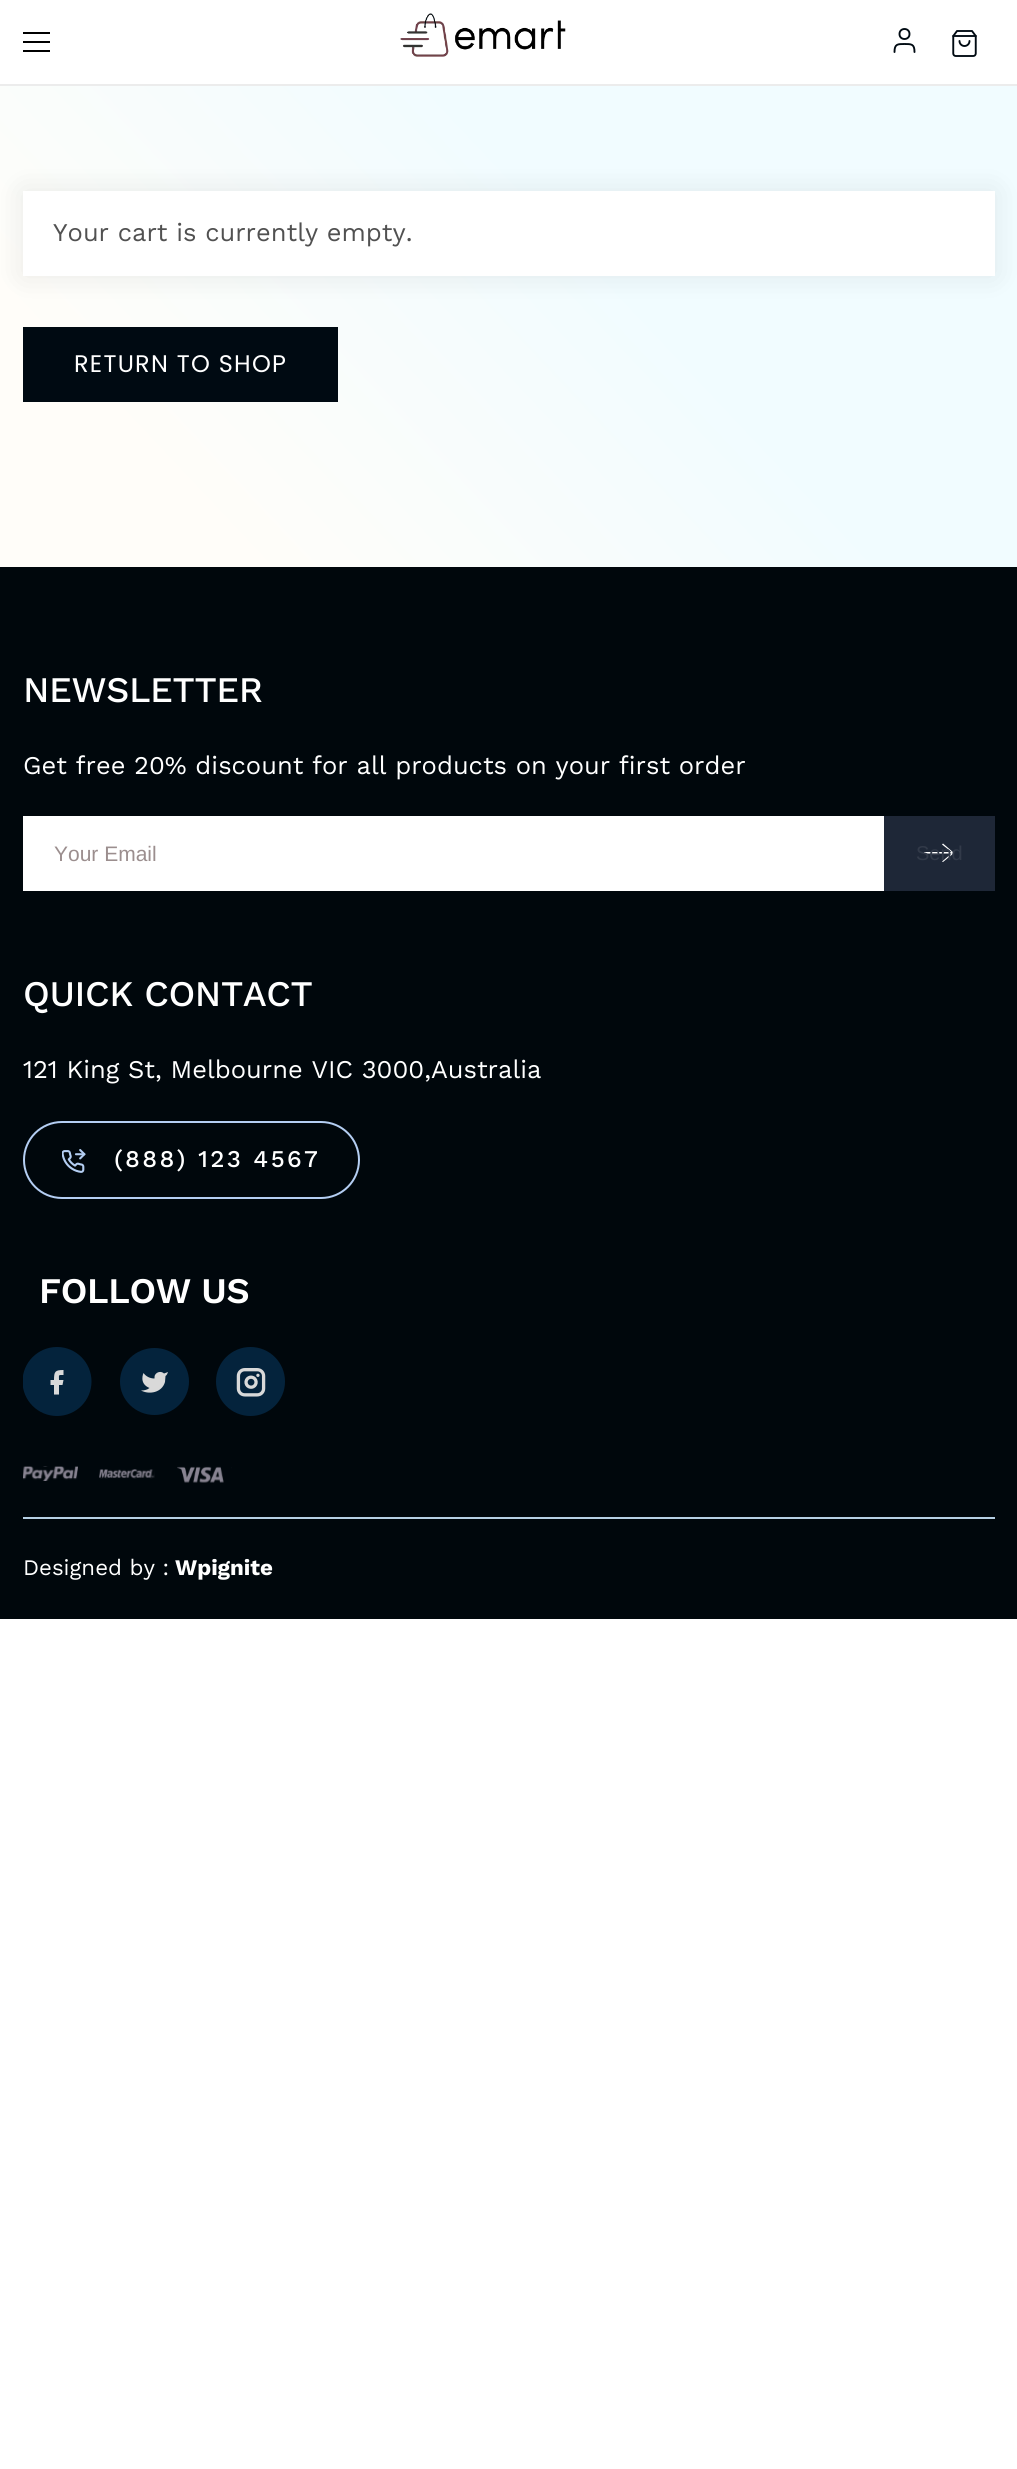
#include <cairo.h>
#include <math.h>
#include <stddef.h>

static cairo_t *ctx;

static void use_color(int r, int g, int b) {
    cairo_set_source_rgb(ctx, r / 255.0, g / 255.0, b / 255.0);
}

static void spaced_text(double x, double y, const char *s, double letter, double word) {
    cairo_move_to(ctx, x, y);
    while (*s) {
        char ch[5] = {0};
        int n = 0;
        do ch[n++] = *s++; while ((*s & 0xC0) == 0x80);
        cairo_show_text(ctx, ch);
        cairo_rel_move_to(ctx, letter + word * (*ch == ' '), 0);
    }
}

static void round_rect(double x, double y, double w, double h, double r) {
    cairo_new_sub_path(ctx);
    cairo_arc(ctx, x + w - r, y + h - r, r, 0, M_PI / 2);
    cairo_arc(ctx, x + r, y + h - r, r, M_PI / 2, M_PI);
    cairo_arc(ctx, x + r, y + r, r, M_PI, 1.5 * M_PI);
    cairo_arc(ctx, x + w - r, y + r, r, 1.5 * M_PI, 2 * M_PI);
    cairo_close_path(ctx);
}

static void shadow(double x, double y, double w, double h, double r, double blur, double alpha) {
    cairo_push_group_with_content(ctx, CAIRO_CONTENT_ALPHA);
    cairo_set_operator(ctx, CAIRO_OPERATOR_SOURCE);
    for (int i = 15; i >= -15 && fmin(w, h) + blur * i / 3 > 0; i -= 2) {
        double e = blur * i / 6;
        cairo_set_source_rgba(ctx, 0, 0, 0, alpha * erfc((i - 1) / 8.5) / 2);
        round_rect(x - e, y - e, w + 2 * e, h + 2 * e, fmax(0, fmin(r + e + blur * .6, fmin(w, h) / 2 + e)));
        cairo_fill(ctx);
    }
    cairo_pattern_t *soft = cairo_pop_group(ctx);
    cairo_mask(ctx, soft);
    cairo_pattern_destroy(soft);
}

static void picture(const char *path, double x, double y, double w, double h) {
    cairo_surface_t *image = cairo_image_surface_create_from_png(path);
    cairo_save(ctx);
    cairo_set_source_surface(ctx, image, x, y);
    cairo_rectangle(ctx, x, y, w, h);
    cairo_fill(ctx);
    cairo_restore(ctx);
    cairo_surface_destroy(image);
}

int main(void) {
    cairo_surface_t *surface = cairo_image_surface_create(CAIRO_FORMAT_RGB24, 1017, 2469);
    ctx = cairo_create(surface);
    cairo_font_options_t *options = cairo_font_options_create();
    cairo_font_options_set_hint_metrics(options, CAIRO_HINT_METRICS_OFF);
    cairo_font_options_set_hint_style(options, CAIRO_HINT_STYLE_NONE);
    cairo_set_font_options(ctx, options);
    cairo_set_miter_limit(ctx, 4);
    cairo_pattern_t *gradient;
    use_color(255, 255, 255);
    cairo_paint(ctx);
    use_color(236, 236, 236);
    cairo_rectangle(ctx, 0, 84, 1017, 2);
    cairo_fill(ctx);
    use_color(0, 0, 0);
    cairo_rectangle(ctx, 23, 32, 27, 2);
    cairo_fill(ctx);
    cairo_rectangle(ctx, 23, 41, 27, 2);
    cairo_fill(ctx);
    cairo_rectangle(ctx, 23, 50, 27, 2);
    cairo_fill(ctx);
    picture("img1.png", 400, 13, 166, 44);
    cairo_arc(ctx, 904.5, 34, 5, 0, 2 * M_PI);
    use_color(0, 10, 18);
    cairo_set_line_width(ctx, 1.9);
    cairo_stroke(ctx);
    cairo_new_path(ctx);
    cairo_move_to(ctx, 914.5, 52);
    cairo_curve_to(ctx, 914.5, 44, 911.5, 44, 904.5, 44);
    cairo_curve_to(ctx, 897.5, 44, 894.5, 44, 894.5, 52);
    cairo_set_line_cap(ctx, CAIRO_LINE_CAP_ROUND);
    cairo_set_line_join(ctx, CAIRO_LINE_JOIN_ROUND);
    cairo_stroke(ctx);
    picture("img2.png", 952, 30, 25, 27);
    gradient = cairo_pattern_create_linear(898, -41, 119, 693);
    cairo_pattern_add_color_stop_rgba(gradient, 0.39, 0.945, 0.988, 1, 1);
    cairo_pattern_add_color_stop_rgba(gradient, 0.83, 1, 0.992, 0.976, 1);
    cairo_set_source(ctx, gradient);
    cairo_pattern_destroy(gradient);
    cairo_rectangle(ctx, 0, 86, 1017, 481);
    cairo_fill(ctx);
    use_color(0, 0, 0);
    shadow(23, 191, 972, 85, 0, 15, 0.08);
    use_color(255, 255, 255);
    cairo_rectangle(ctx, 23, 191, 972, 85);
    cairo_fill(ctx);
    cairo_select_font_face(ctx, "Work Sans", CAIRO_FONT_SLANT_NORMAL, CAIRO_FONT_WEIGHT_NORMAL);
    cairo_set_font_size(ctx, 25.5);
    use_color(81, 81, 81);
    cairo_move_to(ctx, 53, 241);
    cairo_show_text(ctx, "Your cart is currently empty.");
    use_color(0, 10, 18);
    cairo_rectangle(ctx, 23, 327, 315, 75);
    cairo_fill(ctx);
    cairo_select_font_face(ctx, "Poppins", CAIRO_FONT_SLANT_NORMAL, CAIRO_FONT_WEIGHT_NORMAL);
    cairo_set_font_size(ctx, 24);
    use_color(255, 255, 255);
    spaced_text(74, 372, "RETURN TO SHOP", 1.25, 0);
    use_color(0, 7, 12);
    cairo_rectangle(ctx, 0, 567, 1017, 1052);
    cairo_fill(ctx);
    cairo_select_font_face(ctx, "Work Sans Medium", CAIRO_FONT_SLANT_NORMAL, CAIRO_FONT_WEIGHT_NORMAL);
    cairo_set_font_size(ctx, 36);
    use_color(255, 255, 255);
    spaced_text(23, 702, "NEWSLETTER", -0.4, 0);
    cairo_select_font_face(ctx, "Work Sans", CAIRO_FONT_SLANT_NORMAL, CAIRO_FONT_WEIGHT_NORMAL);
    cairo_set_font_size(ctx, 25.5);
    cairo_move_to(ctx, 23, 774);
    cairo_show_text(ctx, "Get free 20% discount for all products on your first order");
    cairo_rectangle(ctx, 25, 818, 859, 71);
    cairo_fill(ctx);
    cairo_rectangle(ctx, 24, 817, 970, 73);
    cairo_set_line_width(ctx, 2);
    cairo_set_line_cap(ctx, CAIRO_LINE_CAP_BUTT);
    cairo_set_line_join(ctx, CAIRO_LINE_JOIN_MITER);
    cairo_stroke(ctx);
    cairo_select_font_face(ctx, "Liberation Sans", CAIRO_FONT_SLANT_NORMAL, CAIRO_FONT_WEIGHT_NORMAL);
    cairo_set_font_size(ctx, 21);
    use_color(155, 142, 142);
    cairo_move_to(ctx, 54, 861);
    cairo_show_text(ctx, "Your Email");
    use_color(30, 39, 55);
    cairo_rectangle(ctx, 884, 816, 111, 75);
    cairo_fill(ctx);
    use_color(255, 255, 255);
    cairo_set_fill_rule(ctx, CAIRO_FILL_RULE_EVEN_ODD);
    cairo_new_path(ctx);
    cairo_move_to(ctx, 951.5, 853.5);
    cairo_line_to(ctx, 942, 861.5);
    cairo_line_to(ctx, 943, 862);
    cairo_line_to(ctx, 954, 853);
    cairo_line_to(ctx, 943, 843.5);
    cairo_line_to(ctx, 942, 844.5);
    cairo_line_to(ctx, 951.5, 852);
    cairo_line_to(ctx, 924, 852);
    cairo_line_to(ctx, 924, 853.5);
    cairo_close_path(ctx);
    cairo_fill(ctx);
    cairo_set_font_size(ctx, 20);
    use_color(50, 58, 73);
    cairo_move_to(ctx, 916, 860);
    cairo_show_text(ctx, "Send");
    cairo_select_font_face(ctx, "Work Sans Medium", CAIRO_FONT_SLANT_NORMAL, CAIRO_FONT_WEIGHT_NORMAL);
    cairo_set_font_size(ctx, 36);
    use_color(255, 255, 255);
    spaced_text(23, 1006, "QUICK CONTACT", -0.4, 0);
    cairo_select_font_face(ctx, "Work Sans", CAIRO_FONT_SLANT_NORMAL, CAIRO_FONT_WEIGHT_NORMAL);
    cairo_set_font_size(ctx, 25.5);
    cairo_move_to(ctx, 23, 1078);
    cairo_show_text(ctx, "121 King St, Melbourne VIC 3000,Australia");
    round_rect(24, 1122, 335, 76, 38);
    use_color(180, 206, 243);
    cairo_stroke(ctx);
    picture("img3.png", 62, 1149, 24, 24);
    cairo_select_font_face(ctx, "Work Sans Medium", CAIRO_FONT_SLANT_NORMAL, CAIRO_FONT_WEIGHT_NORMAL);
    cairo_set_font_size(ctx, 24);
    use_color(255, 255, 255);
    spaced_text(114, 1167, "(888) 123 4567", 2.4, 0);
    cairo_select_font_face(ctx, "Work Sans SemiBold", CAIRO_FONT_SLANT_NORMAL, CAIRO_FONT_WEIGHT_NORMAL);
    cairo_set_font_size(ctx, 36);
    spaced_text(39, 1303, "FOLLOW US", -0.4, 0);
    cairo_save(ctx);
    cairo_set_fill_rule(ctx, CAIRO_FILL_RULE_WINDING);
    cairo_rectangle(ctx, 23, 1347, 69, 69);
    cairo_clip(ctx);
    use_color(4, 35, 60);
    cairo_arc(ctx, 57, 1381.5, 34.5, 0, 2 * M_PI);
    cairo_fill(ctx);
    cairo_restore(ctx);
    use_color(217, 217, 217);
    cairo_set_fill_rule(ctx, CAIRO_FILL_RULE_WINDING);
    cairo_new_path(ctx);
    cairo_move_to(ctx, 63.5, 1370);
    cairo_curve_to(ctx, 55, 1370, 54, 1371.5, 54, 1380);
    cairo_line_to(ctx, 50.5, 1380);
    cairo_line_to(ctx, 50.5, 1385);
    cairo_line_to(ctx, 54, 1385);
    cairo_line_to(ctx, 54, 1394.5);
    cairo_line_to(ctx, 59, 1394.5);
    cairo_line_to(ctx, 59, 1385);
    cairo_line_to(ctx, 62.5, 1385);
    cairo_line_to(ctx, 63.5, 1380);
    cairo_line_to(ctx, 59, 1380);
    cairo_curve_to(ctx, 59, 1374.5, 58, 1375, 63.5, 1375);
    cairo_close_path(ctx);
    cairo_fill(ctx);
    use_color(4, 35, 60);
    cairo_new_path(ctx);
    cairo_move_to(ctx, 154.5, 1348);
    cairo_curve_to(ctx, 173.5, 1348, 189, 1363, 189, 1381.5);
    cairo_curve_to(ctx, 189, 1400, 173.5, 1415, 154.5, 1415);
    cairo_curve_to(ctx, 135.5, 1415, 120, 1400, 120, 1381.5);
    cairo_curve_to(ctx, 120, 1363, 135.5, 1348, 154.5, 1348);
    cairo_close_path(ctx);
    cairo_fill(ctx);
    use_color(217, 217, 217);
    cairo_new_path(ctx);
    cairo_move_to(ctx, 168, 1372);
    cairo_line_to(ctx, 164, 1373.5);
    cairo_curve_to(ctx, 161.5, 1371, 157, 1371.5, 155, 1375);
    cairo_curve_to(ctx, 154.5, 1376, 154.5, 1377, 154.5, 1378.5);
    cairo_curve_to(ctx, 150, 1378.5, 146, 1376.5, 143.5, 1373);
    cairo_curve_to(ctx, 143.5, 1373, 138.5, 1383.5, 149.5, 1388);
    cairo_curve_to(ctx, 147, 1390, 144, 1390.5, 141, 1390.5);
    cairo_curve_to(ctx, 149.5, 1395, 162, 1392.5, 165, 1382);
    cairo_line_to(ctx, 165.5, 1376);
    cairo_curve_to(ctx, 167, 1375, 167.5, 1373.5, 168, 1372);
    cairo_close_path(ctx);
    cairo_fill(ctx);
    picture("img4.png", 216, 1347, 69, 69);
    picture("img5.png", 23, 1466, 55, 15);
    picture("img6.png", 99, 1469, 56, 10);
    picture("img7.png", 177, 1466, 55, 17);
    use_color(181, 207, 228);
    cairo_rectangle(ctx, 23, 1517, 972, 2);
    cairo_fill(ctx);
    cairo_select_font_face(ctx, "Work Sans", CAIRO_FONT_SLANT_NORMAL, CAIRO_FONT_WEIGHT_NORMAL);
    cairo_set_font_size(ctx, 22.25);
    use_color(255, 255, 255);
    cairo_move_to(ctx, 23, 1575);
    cairo_show_text(ctx, "Designed by :");
    cairo_select_font_face(ctx, "Work Sans", CAIRO_FONT_SLANT_NORMAL, CAIRO_FONT_WEIGHT_BOLD);
    cairo_move_to(ctx, 175, 1575);
    cairo_show_text(ctx, "Wpignite");
    cairo_surface_write_to_png(surface, "result.png");
    cairo_font_options_destroy(options);
    cairo_destroy(ctx);
    cairo_surface_destroy(surface);
    return 0;
}
